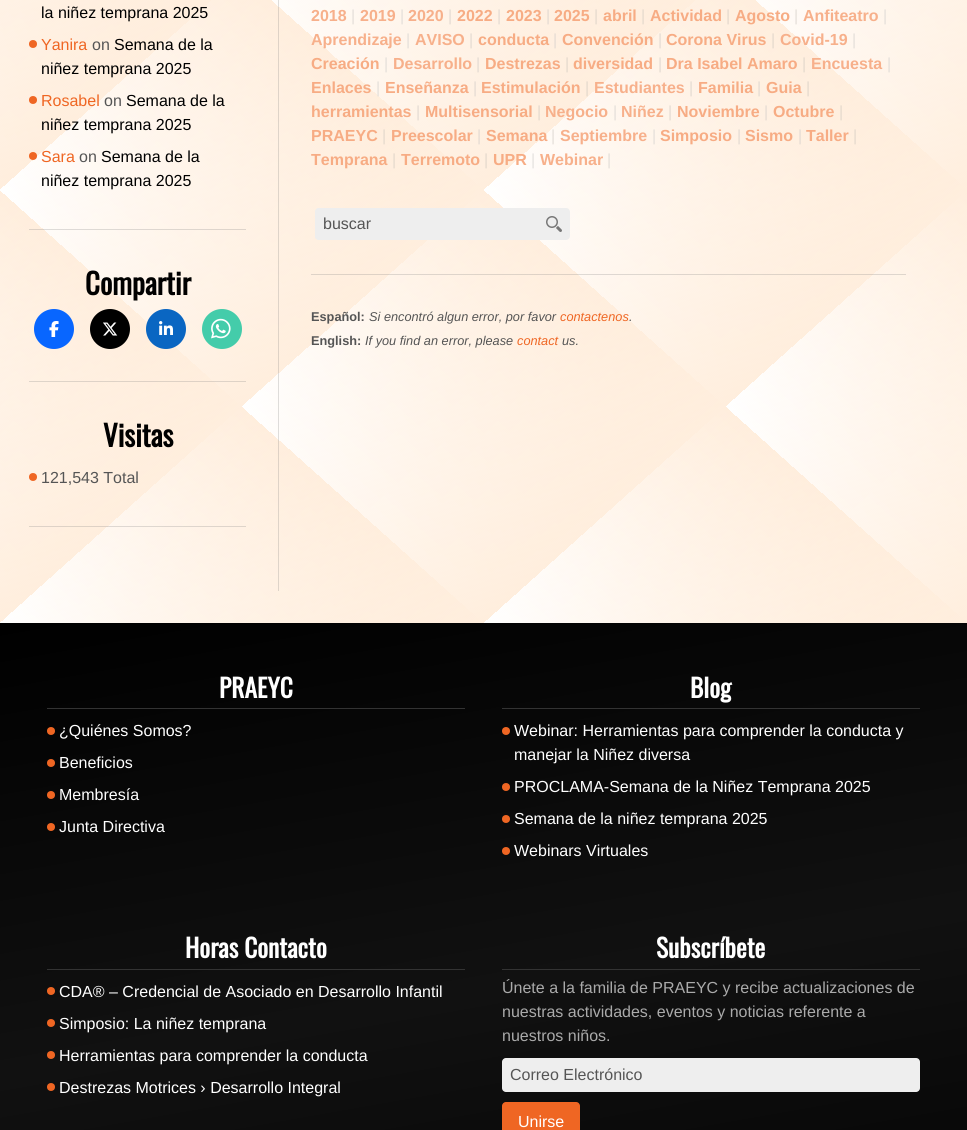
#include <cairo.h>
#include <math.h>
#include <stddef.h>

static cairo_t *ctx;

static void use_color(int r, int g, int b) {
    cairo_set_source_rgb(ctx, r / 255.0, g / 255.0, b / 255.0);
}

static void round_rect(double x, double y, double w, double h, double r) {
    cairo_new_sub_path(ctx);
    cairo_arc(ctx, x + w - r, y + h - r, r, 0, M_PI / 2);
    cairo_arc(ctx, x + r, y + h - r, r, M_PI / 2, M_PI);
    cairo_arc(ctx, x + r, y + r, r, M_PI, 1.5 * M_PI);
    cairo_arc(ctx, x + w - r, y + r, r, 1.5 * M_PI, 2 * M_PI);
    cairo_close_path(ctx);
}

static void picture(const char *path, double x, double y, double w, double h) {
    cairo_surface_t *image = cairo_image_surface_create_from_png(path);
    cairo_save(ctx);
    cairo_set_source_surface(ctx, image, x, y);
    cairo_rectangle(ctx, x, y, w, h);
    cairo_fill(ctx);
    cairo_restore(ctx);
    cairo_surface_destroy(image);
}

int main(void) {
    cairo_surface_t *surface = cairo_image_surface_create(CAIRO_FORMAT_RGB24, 967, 1130);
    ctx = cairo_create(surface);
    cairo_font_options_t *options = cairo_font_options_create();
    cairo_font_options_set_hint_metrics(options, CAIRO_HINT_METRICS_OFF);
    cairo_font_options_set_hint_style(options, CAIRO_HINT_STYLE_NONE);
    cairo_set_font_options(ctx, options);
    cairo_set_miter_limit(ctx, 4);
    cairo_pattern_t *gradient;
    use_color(255, 255, 255);
    cairo_paint(ctx);
    gradient = cairo_pattern_create_linear(53, 671, 914, -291);
    cairo_pattern_add_color_stop_rgba(gradient, 0, 1, 1, 1, 1);
    cairo_pattern_add_color_stop_rgba(gradient, 0.25, 1, 0.933, 0.867, 1);
    cairo_pattern_add_color_stop_rgba(gradient, 0.25, 1, 1, 1, 1);
    cairo_pattern_add_color_stop_rgba(gradient, 0.5, 1, 0.933, 0.867, 1);
    cairo_pattern_add_color_stop_rgba(gradient, 0.5, 1, 1, 1, 1);
    cairo_pattern_add_color_stop_rgba(gradient, 0.75, 1, 0.933, 0.867, 1);
    cairo_pattern_add_color_stop_rgba(gradient, 0.75, 1, 1, 1, 1);
    cairo_pattern_add_color_stop_rgba(gradient, 1, 1, 0.933, 0.867, 1);
    cairo_set_source(ctx, gradient);
    cairo_pattern_destroy(gradient);
    cairo_rectangle(ctx, 0, 0, 967, 623);
    cairo_fill(ctx);
    gradient = cairo_pattern_create_linear(53, -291, 914, 671);
    cairo_pattern_add_color_stop_rgba(gradient, 0, 1, 0.933, 0.867, 0);
    cairo_pattern_add_color_stop_rgba(gradient, 0.25, 1, 0.933, 0.867, 1);
    cairo_pattern_add_color_stop_rgba(gradient, 0.25, 1, 0.933, 0.867, 0);
    cairo_pattern_add_color_stop_rgba(gradient, 0.5, 1, 0.933, 0.867, 1);
    cairo_pattern_add_color_stop_rgba(gradient, 0.5, 1, 0.933, 0.867, 0);
    cairo_pattern_add_color_stop_rgba(gradient, 0.75, 1, 0.933, 0.867, 1);
    cairo_pattern_add_color_stop_rgba(gradient, 0.75, 1, 0.933, 0.867, 0);
    cairo_pattern_add_color_stop_rgba(gradient, 1, 1, 0.933, 0.867, 1);
    cairo_set_source(ctx, gradient);
    cairo_pattern_destroy(gradient);
    cairo_rectangle(ctx, 0, 0, 967, 623);
    cairo_fill(ctx);
    cairo_set_source_rgba(ctx, 0.49, 0.49, 0.49, 0.25);
    cairo_rectangle(ctx, 278, 0, 1, 591);
    cairo_fill(ctx);
    cairo_rectangle(ctx, 29, 229, 217, 1);
    cairo_fill(ctx);
    cairo_select_font_face(ctx, "Liberation Sans", CAIRO_FONT_SLANT_NORMAL, CAIRO_FONT_WEIGHT_NORMAL);
    cairo_set_font_size(ctx, 16);
    use_color(0, 0, 0);
    cairo_move_to(ctx, 41, 18);
    cairo_show_text(ctx, "la niñez temprana 2025");
    use_color(239, 102, 35);
    cairo_new_path(ctx);
    cairo_arc(ctx, 33, 44, 4, 0, 2 * M_PI);
    cairo_fill(ctx);
    cairo_move_to(ctx, 41, 50);
    cairo_show_text(ctx, "Yanira");
    use_color(85, 85, 85);
    cairo_move_to(ctx, 92, 50);
    cairo_show_text(ctx, "on");
    use_color(0, 0, 0);
    cairo_move_to(ctx, 114, 50);
    cairo_show_text(ctx, "Semana de la");
    cairo_move_to(ctx, 41, 74);
    cairo_show_text(ctx, "niñez temprana 2025");
    use_color(239, 102, 35);
    cairo_new_path(ctx);
    cairo_arc(ctx, 33, 100, 4, 0, 2 * M_PI);
    cairo_fill(ctx);
    cairo_move_to(ctx, 41, 106);
    cairo_show_text(ctx, "Rosabel");
    use_color(85, 85, 85);
    cairo_move_to(ctx, 104, 106);
    cairo_show_text(ctx, "on");
    use_color(0, 0, 0);
    cairo_move_to(ctx, 126, 106);
    cairo_show_text(ctx, "Semana de la");
    cairo_move_to(ctx, 41, 130);
    cairo_show_text(ctx, "niñez temprana 2025");
    use_color(239, 102, 35);
    cairo_new_path(ctx);
    cairo_arc(ctx, 33, 156, 4, 0, 2 * M_PI);
    cairo_fill(ctx);
    cairo_move_to(ctx, 41, 162);
    cairo_show_text(ctx, "Sara");
    use_color(85, 85, 85);
    cairo_move_to(ctx, 79, 162);
    cairo_show_text(ctx, "on");
    use_color(0, 0, 0);
    cairo_move_to(ctx, 101, 162);
    cairo_show_text(ctx, "Semana de la");
    cairo_move_to(ctx, 41, 186);
    cairo_show_text(ctx, "niñez temprana 2025");
    cairo_set_source_rgba(ctx, 0.49, 0.49, 0.49, 0.25);
    cairo_rectangle(ctx, 29, 381, 217, 1);
    cairo_fill(ctx);
    cairo_select_font_face(ctx, "Oswald", CAIRO_FONT_SLANT_NORMAL, CAIRO_FONT_WEIGHT_BOLD);
    cairo_set_font_size(ctx, 29);
    use_color(0, 0, 0);
    cairo_move_to(ctx, 85, 295);
    cairo_show_text(ctx, "Compartir");
    use_color(8, 102, 255);
    cairo_new_path(ctx);
    cairo_arc(ctx, 54, 329, 20, 0, 2 * M_PI);
    cairo_fill(ctx);
    picture("img1.png", 49, 321, 10, 16);
    use_color(0, 0, 0);
    cairo_arc(ctx, 110, 329, 20, 0, 2 * M_PI);
    cairo_fill(ctx);
    picture("img2.png", 103, 322, 15, 14);
    use_color(10, 102, 194);
    cairo_arc(ctx, 166, 329, 20, 0, 2 * M_PI);
    cairo_fill(ctx);
    picture("img3.png", 159, 321, 14, 14);
    use_color(68, 204, 170);
    cairo_arc(ctx, 222, 329, 20, 0, 2 * M_PI);
    cairo_fill(ctx);
    picture("img4.png", 211, 318, 20, 21);
    cairo_set_source_rgba(ctx, 0.49, 0.49, 0.49, 0.25);
    cairo_rectangle(ctx, 29, 526, 217, 1);
    cairo_fill(ctx);
    use_color(0, 0, 0);
    cairo_move_to(ctx, 103, 447);
    cairo_show_text(ctx, "Visitas");
    use_color(239, 102, 35);
    cairo_new_path(ctx);
    cairo_arc(ctx, 33, 477, 4, 0, 2 * M_PI);
    cairo_fill(ctx);
    cairo_select_font_face(ctx, "Liberation Sans", CAIRO_FONT_SLANT_NORMAL, CAIRO_FONT_WEIGHT_NORMAL);
    cairo_set_font_size(ctx, 16);
    use_color(85, 85, 85);
    cairo_move_to(ctx, 41, 483);
    cairo_show_text(ctx, "121,543 Total");
    cairo_select_font_face(ctx, "Liberation Sans", CAIRO_FONT_SLANT_NORMAL, CAIRO_FONT_WEIGHT_BOLD);
    use_color(247, 176, 139);
    cairo_move_to(ctx, 311, 21);
    cairo_show_text(ctx, "2018");
    cairo_select_font_face(ctx, "Liberation Sans", CAIRO_FONT_SLANT_NORMAL, CAIRO_FONT_WEIGHT_NORMAL);
    use_color(229, 224, 218);
    cairo_move_to(ctx, 351, 21);
    cairo_show_text(ctx, "|");
    cairo_select_font_face(ctx, "Liberation Sans", CAIRO_FONT_SLANT_NORMAL, CAIRO_FONT_WEIGHT_BOLD);
    use_color(247, 176, 139);
    cairo_move_to(ctx, 360, 21);
    cairo_show_text(ctx, "2019");
    cairo_select_font_face(ctx, "Liberation Sans", CAIRO_FONT_SLANT_NORMAL, CAIRO_FONT_WEIGHT_NORMAL);
    use_color(229, 224, 218);
    cairo_move_to(ctx, 400, 21);
    cairo_show_text(ctx, "|");
    cairo_select_font_face(ctx, "Liberation Sans", CAIRO_FONT_SLANT_NORMAL, CAIRO_FONT_WEIGHT_BOLD);
    use_color(247, 176, 139);
    cairo_move_to(ctx, 408, 21);
    cairo_show_text(ctx, "2020");
    cairo_select_font_face(ctx, "Liberation Sans", CAIRO_FONT_SLANT_NORMAL, CAIRO_FONT_WEIGHT_NORMAL);
    use_color(229, 220, 211);
    cairo_move_to(ctx, 448, 21);
    cairo_show_text(ctx, "|");
    cairo_select_font_face(ctx, "Liberation Sans", CAIRO_FONT_SLANT_NORMAL, CAIRO_FONT_WEIGHT_BOLD);
    use_color(247, 172, 132);
    cairo_move_to(ctx, 457, 21);
    cairo_show_text(ctx, "2022");
    cairo_select_font_face(ctx, "Liberation Sans", CAIRO_FONT_SLANT_NORMAL, CAIRO_FONT_WEIGHT_NORMAL);
    use_color(229, 220, 211);
    cairo_move_to(ctx, 497, 21);
    cairo_show_text(ctx, "|");
    cairo_select_font_face(ctx, "Liberation Sans", CAIRO_FONT_SLANT_NORMAL, CAIRO_FONT_WEIGHT_BOLD);
    use_color(247, 172, 132);
    cairo_move_to(ctx, 506, 21);
    cairo_show_text(ctx, "2023");
    cairo_select_font_face(ctx, "Liberation Sans", CAIRO_FONT_SLANT_NORMAL, CAIRO_FONT_WEIGHT_NORMAL);
    use_color(229, 220, 211);
    cairo_move_to(ctx, 546, 21);
    cairo_show_text(ctx, "|");
    cairo_select_font_face(ctx, "Liberation Sans", CAIRO_FONT_SLANT_NORMAL, CAIRO_FONT_WEIGHT_BOLD);
    use_color(247, 172, 132);
    cairo_move_to(ctx, 554, 21);
    cairo_show_text(ctx, "2025");
    cairo_select_font_face(ctx, "Liberation Sans", CAIRO_FONT_SLANT_NORMAL, CAIRO_FONT_WEIGHT_NORMAL);
    use_color(229, 217, 205);
    cairo_move_to(ctx, 594, 21);
    cairo_show_text(ctx, "|");
    cairo_select_font_face(ctx, "Liberation Sans", CAIRO_FONT_SLANT_NORMAL, CAIRO_FONT_WEIGHT_BOLD);
    use_color(247, 172, 132);
    cairo_move_to(ctx, 603, 21);
    cairo_show_text(ctx, "abril");
    cairo_select_font_face(ctx, "Liberation Sans", CAIRO_FONT_SLANT_NORMAL, CAIRO_FONT_WEIGHT_NORMAL);
    use_color(229, 217, 205);
    cairo_move_to(ctx, 641, 21);
    cairo_show_text(ctx, "|");
    cairo_select_font_face(ctx, "Liberation Sans", CAIRO_FONT_SLANT_NORMAL, CAIRO_FONT_WEIGHT_BOLD);
    use_color(247, 172, 132);
    cairo_move_to(ctx, 650, 21);
    cairo_show_text(ctx, "Actividad");
    cairo_select_font_face(ctx, "Liberation Sans", CAIRO_FONT_SLANT_NORMAL, CAIRO_FONT_WEIGHT_NORMAL);
    use_color(229, 217, 205);
    cairo_move_to(ctx, 726, 21);
    cairo_show_text(ctx, "|");
    cairo_select_font_face(ctx, "Liberation Sans", CAIRO_FONT_SLANT_NORMAL, CAIRO_FONT_WEIGHT_BOLD);
    use_color(247, 172, 132);
    cairo_move_to(ctx, 735, 21);
    cairo_show_text(ctx, "Agosto");
    cairo_select_font_face(ctx, "Liberation Sans", CAIRO_FONT_SLANT_NORMAL, CAIRO_FONT_WEIGHT_NORMAL);
    use_color(229, 224, 218);
    cairo_move_to(ctx, 794, 21);
    cairo_show_text(ctx, "|");
    cairo_select_font_face(ctx, "Liberation Sans", CAIRO_FONT_SLANT_NORMAL, CAIRO_FONT_WEIGHT_BOLD);
    use_color(247, 176, 139);
    cairo_move_to(ctx, 803, 21);
    cairo_show_text(ctx, "Anfiteatro");
    cairo_select_font_face(ctx, "Liberation Sans", CAIRO_FONT_SLANT_NORMAL, CAIRO_FONT_WEIGHT_NORMAL);
    use_color(229, 224, 218);
    cairo_move_to(ctx, 883, 21);
    cairo_show_text(ctx, "|");
    cairo_select_font_face(ctx, "Liberation Sans", CAIRO_FONT_SLANT_NORMAL, CAIRO_FONT_WEIGHT_BOLD);
    use_color(247, 176, 139);
    cairo_move_to(ctx, 311, 45);
    cairo_show_text(ctx, "Aprendizaje");
    cairo_select_font_face(ctx, "Liberation Sans", CAIRO_FONT_SLANT_NORMAL, CAIRO_FONT_WEIGHT_NORMAL);
    use_color(229, 224, 218);
    cairo_move_to(ctx, 406, 45);
    cairo_show_text(ctx, "|");
    cairo_select_font_face(ctx, "Liberation Sans", CAIRO_FONT_SLANT_NORMAL, CAIRO_FONT_WEIGHT_BOLD);
    use_color(247, 176, 139);
    cairo_move_to(ctx, 415, 45);
    cairo_show_text(ctx, "AVISO");
    cairo_select_font_face(ctx, "Liberation Sans", CAIRO_FONT_SLANT_NORMAL, CAIRO_FONT_WEIGHT_NORMAL);
    use_color(229, 220, 211);
    cairo_move_to(ctx, 469, 45);
    cairo_show_text(ctx, "|");
    cairo_select_font_face(ctx, "Liberation Sans", CAIRO_FONT_SLANT_NORMAL, CAIRO_FONT_WEIGHT_BOLD);
    use_color(247, 172, 132);
    cairo_move_to(ctx, 478, 45);
    cairo_show_text(ctx, "conducta");
    cairo_select_font_face(ctx, "Liberation Sans", CAIRO_FONT_SLANT_NORMAL, CAIRO_FONT_WEIGHT_NORMAL);
    use_color(229, 220, 211);
    cairo_move_to(ctx, 553, 45);
    cairo_show_text(ctx, "|");
    cairo_select_font_face(ctx, "Liberation Sans", CAIRO_FONT_SLANT_NORMAL, CAIRO_FONT_WEIGHT_BOLD);
    use_color(247, 172, 132);
    cairo_move_to(ctx, 562, 45);
    cairo_show_text(ctx, "Convención");
    cairo_select_font_face(ctx, "Liberation Sans", CAIRO_FONT_SLANT_NORMAL, CAIRO_FONT_WEIGHT_NORMAL);
    use_color(229, 220, 211);
    cairo_move_to(ctx, 658, 45);
    cairo_show_text(ctx, "|");
    cairo_select_font_face(ctx, "Liberation Sans", CAIRO_FONT_SLANT_NORMAL, CAIRO_FONT_WEIGHT_BOLD);
    use_color(247, 172, 132);
    cairo_move_to(ctx, 666, 45);
    cairo_show_text(ctx, "Corona Virus");
    cairo_select_font_face(ctx, "Liberation Sans", CAIRO_FONT_SLANT_NORMAL, CAIRO_FONT_WEIGHT_NORMAL);
    use_color(229, 217, 205);
    cairo_move_to(ctx, 771, 45);
    cairo_show_text(ctx, "|");
    cairo_select_font_face(ctx, "Liberation Sans", CAIRO_FONT_SLANT_NORMAL, CAIRO_FONT_WEIGHT_BOLD);
    use_color(247, 176, 139);
    cairo_move_to(ctx, 780, 45);
    cairo_show_text(ctx, "Covid-19");
    cairo_select_font_face(ctx, "Liberation Sans", CAIRO_FONT_SLANT_NORMAL, CAIRO_FONT_WEIGHT_NORMAL);
    use_color(229, 224, 218);
    cairo_move_to(ctx, 852, 45);
    cairo_show_text(ctx, "|");
    cairo_select_font_face(ctx, "Liberation Sans", CAIRO_FONT_SLANT_NORMAL, CAIRO_FONT_WEIGHT_BOLD);
    use_color(247, 172, 132);
    cairo_move_to(ctx, 311, 69);
    cairo_show_text(ctx, "Creación");
    cairo_select_font_face(ctx, "Liberation Sans", CAIRO_FONT_SLANT_NORMAL, CAIRO_FONT_WEIGHT_NORMAL);
    use_color(229, 224, 218);
    cairo_move_to(ctx, 384, 69);
    cairo_show_text(ctx, "|");
    cairo_select_font_face(ctx, "Liberation Sans", CAIRO_FONT_SLANT_NORMAL, CAIRO_FONT_WEIGHT_BOLD);
    use_color(247, 176, 139);
    cairo_move_to(ctx, 393, 69);
    cairo_show_text(ctx, "Desarrollo");
    cairo_select_font_face(ctx, "Liberation Sans", CAIRO_FONT_SLANT_NORMAL, CAIRO_FONT_WEIGHT_NORMAL);
    use_color(229, 220, 211);
    cairo_move_to(ctx, 476, 69);
    cairo_show_text(ctx, "|");
    cairo_select_font_face(ctx, "Liberation Sans", CAIRO_FONT_SLANT_NORMAL, CAIRO_FONT_WEIGHT_BOLD);
    use_color(247, 172, 132);
    cairo_move_to(ctx, 485, 69);
    cairo_show_text(ctx, "Destrezas");
    cairo_select_font_face(ctx, "Liberation Sans", CAIRO_FONT_SLANT_NORMAL, CAIRO_FONT_WEIGHT_NORMAL);
    use_color(229, 217, 205);
    cairo_move_to(ctx, 565, 69);
    cairo_show_text(ctx, "|");
    cairo_select_font_face(ctx, "Liberation Sans", CAIRO_FONT_SLANT_NORMAL, CAIRO_FONT_WEIGHT_BOLD);
    use_color(247, 172, 132);
    cairo_move_to(ctx, 573, 69);
    cairo_show_text(ctx, "diversidad");
    cairo_select_font_face(ctx, "Liberation Sans", CAIRO_FONT_SLANT_NORMAL, CAIRO_FONT_WEIGHT_NORMAL);
    use_color(229, 220, 211);
    cairo_move_to(ctx, 658, 69);
    cairo_show_text(ctx, "|");
    cairo_select_font_face(ctx, "Liberation Sans", CAIRO_FONT_SLANT_NORMAL, CAIRO_FONT_WEIGHT_BOLD);
    use_color(247, 172, 132);
    cairo_move_to(ctx, 666, 69);
    cairo_show_text(ctx, "Dra Isabel Amaro");
    cairo_select_font_face(ctx, "Liberation Sans", CAIRO_FONT_SLANT_NORMAL, CAIRO_FONT_WEIGHT_NORMAL);
    use_color(229, 217, 205);
    cairo_move_to(ctx, 802, 69);
    cairo_show_text(ctx, "|");
    cairo_select_font_face(ctx, "Liberation Sans", CAIRO_FONT_SLANT_NORMAL, CAIRO_FONT_WEIGHT_BOLD);
    use_color(247, 176, 139);
    cairo_move_to(ctx, 811, 69);
    cairo_show_text(ctx, "Encuesta");
    cairo_select_font_face(ctx, "Liberation Sans", CAIRO_FONT_SLANT_NORMAL, CAIRO_FONT_WEIGHT_NORMAL);
    use_color(229, 224, 218);
    cairo_move_to(ctx, 887, 69);
    cairo_show_text(ctx, "|");
    cairo_select_font_face(ctx, "Liberation Sans", CAIRO_FONT_SLANT_NORMAL, CAIRO_FONT_WEIGHT_BOLD);
    use_color(247, 172, 132);
    cairo_move_to(ctx, 311, 93);
    cairo_show_text(ctx, "Enlaces");
    cairo_select_font_face(ctx, "Liberation Sans", CAIRO_FONT_SLANT_NORMAL, CAIRO_FONT_WEIGHT_NORMAL);
    use_color(229, 224, 218);
    cairo_move_to(ctx, 376, 93);
    cairo_show_text(ctx, "|");
    cairo_select_font_face(ctx, "Liberation Sans", CAIRO_FONT_SLANT_NORMAL, CAIRO_FONT_WEIGHT_BOLD);
    use_color(247, 172, 132);
    cairo_move_to(ctx, 385, 93);
    cairo_show_text(ctx, "Enseñanza");
    cairo_select_font_face(ctx, "Liberation Sans", CAIRO_FONT_SLANT_NORMAL, CAIRO_FONT_WEIGHT_NORMAL);
    use_color(229, 220, 211);
    cairo_move_to(ctx, 473, 93);
    cairo_show_text(ctx, "|");
    cairo_select_font_face(ctx, "Liberation Sans", CAIRO_FONT_SLANT_NORMAL, CAIRO_FONT_WEIGHT_BOLD);
    use_color(247, 172, 132);
    cairo_move_to(ctx, 481, 93);
    cairo_show_text(ctx, "Estimulación");
    cairo_select_font_face(ctx, "Liberation Sans", CAIRO_FONT_SLANT_NORMAL, CAIRO_FONT_WEIGHT_NORMAL);
    use_color(229, 217, 205);
    cairo_move_to(ctx, 585, 93);
    cairo_show_text(ctx, "|");
    cairo_select_font_face(ctx, "Liberation Sans", CAIRO_FONT_SLANT_NORMAL, CAIRO_FONT_WEIGHT_BOLD);
    use_color(247, 176, 139);
    cairo_move_to(ctx, 594, 93);
    cairo_show_text(ctx, "Estudiantes");
    cairo_select_font_face(ctx, "Liberation Sans", CAIRO_FONT_SLANT_NORMAL, CAIRO_FONT_WEIGHT_NORMAL);
    use_color(229, 220, 211);
    cairo_move_to(ctx, 689, 93);
    cairo_show_text(ctx, "|");
    cairo_select_font_face(ctx, "Liberation Sans", CAIRO_FONT_SLANT_NORMAL, CAIRO_FONT_WEIGHT_BOLD);
    use_color(247, 172, 132);
    cairo_move_to(ctx, 698, 93);
    cairo_show_text(ctx, "Familia");
    cairo_select_font_face(ctx, "Liberation Sans", CAIRO_FONT_SLANT_NORMAL, CAIRO_FONT_WEIGHT_NORMAL);
    use_color(229, 220, 211);
    cairo_move_to(ctx, 757, 93);
    cairo_show_text(ctx, "|");
    cairo_select_font_face(ctx, "Liberation Sans", CAIRO_FONT_SLANT_NORMAL, CAIRO_FONT_WEIGHT_BOLD);
    use_color(247, 172, 132);
    cairo_move_to(ctx, 766, 93);
    cairo_show_text(ctx, "Guia");
    cairo_select_font_face(ctx, "Liberation Sans", CAIRO_FONT_SLANT_NORMAL, CAIRO_FONT_WEIGHT_NORMAL);
    use_color(229, 217, 205);
    cairo_move_to(ctx, 806, 93);
    cairo_show_text(ctx, "|");
    cairo_select_font_face(ctx, "Liberation Sans", CAIRO_FONT_SLANT_NORMAL, CAIRO_FONT_WEIGHT_BOLD);
    use_color(247, 172, 132);
    cairo_move_to(ctx, 311, 117);
    cairo_show_text(ctx, "herramientas");
    cairo_select_font_face(ctx, "Liberation Sans", CAIRO_FONT_SLANT_NORMAL, CAIRO_FONT_WEIGHT_NORMAL);
    use_color(229, 220, 211);
    cairo_move_to(ctx, 416, 117);
    cairo_show_text(ctx, "|");
    cairo_select_font_face(ctx, "Liberation Sans", CAIRO_FONT_SLANT_NORMAL, CAIRO_FONT_WEIGHT_BOLD);
    use_color(247, 172, 132);
    cairo_move_to(ctx, 425, 117);
    cairo_show_text(ctx, "Multisensorial");
    cairo_select_font_face(ctx, "Liberation Sans", CAIRO_FONT_SLANT_NORMAL, CAIRO_FONT_WEIGHT_NORMAL);
    use_color(229, 217, 205);
    cairo_move_to(ctx, 537, 117);
    cairo_show_text(ctx, "|");
    cairo_select_font_face(ctx, "Liberation Sans", CAIRO_FONT_SLANT_NORMAL, CAIRO_FONT_WEIGHT_BOLD);
    use_color(247, 176, 139);
    cairo_move_to(ctx, 545, 117);
    cairo_show_text(ctx, "Negocio");
    cairo_select_font_face(ctx, "Liberation Sans", CAIRO_FONT_SLANT_NORMAL, CAIRO_FONT_WEIGHT_NORMAL);
    use_color(229, 224, 218);
    cairo_move_to(ctx, 613, 117);
    cairo_show_text(ctx, "|");
    cairo_select_font_face(ctx, "Liberation Sans", CAIRO_FONT_SLANT_NORMAL, CAIRO_FONT_WEIGHT_BOLD);
    use_color(247, 176, 139);
    cairo_move_to(ctx, 621, 117);
    cairo_show_text(ctx, "Niñez");
    cairo_select_font_face(ctx, "Liberation Sans", CAIRO_FONT_SLANT_NORMAL, CAIRO_FONT_WEIGHT_NORMAL);
    use_color(229, 220, 211);
    cairo_move_to(ctx, 668, 117);
    cairo_show_text(ctx, "|");
    cairo_select_font_face(ctx, "Liberation Sans", CAIRO_FONT_SLANT_NORMAL, CAIRO_FONT_WEIGHT_BOLD);
    use_color(247, 172, 132);
    cairo_move_to(ctx, 677, 117);
    cairo_show_text(ctx, "Noviembre");
    cairo_select_font_face(ctx, "Liberation Sans", CAIRO_FONT_SLANT_NORMAL, CAIRO_FONT_WEIGHT_NORMAL);
    use_color(229, 220, 211);
    cairo_move_to(ctx, 764, 117);
    cairo_show_text(ctx, "|");
    cairo_select_font_face(ctx, "Liberation Sans", CAIRO_FONT_SLANT_NORMAL, CAIRO_FONT_WEIGHT_BOLD);
    use_color(247, 172, 132);
    cairo_move_to(ctx, 773, 117);
    cairo_show_text(ctx, "Octubre");
    cairo_select_font_face(ctx, "Liberation Sans", CAIRO_FONT_SLANT_NORMAL, CAIRO_FONT_WEIGHT_NORMAL);
    use_color(229, 217, 205);
    cairo_move_to(ctx, 839, 117);
    cairo_show_text(ctx, "|");
    cairo_select_font_face(ctx, "Liberation Sans", CAIRO_FONT_SLANT_NORMAL, CAIRO_FONT_WEIGHT_BOLD);
    use_color(247, 172, 132);
    cairo_move_to(ctx, 311, 141);
    cairo_show_text(ctx, "PRAEYC");
    cairo_select_font_face(ctx, "Liberation Sans", CAIRO_FONT_SLANT_NORMAL, CAIRO_FONT_WEIGHT_NORMAL);
    use_color(229, 217, 205);
    cairo_move_to(ctx, 382, 141);
    cairo_show_text(ctx, "|");
    cairo_select_font_face(ctx, "Liberation Sans", CAIRO_FONT_SLANT_NORMAL, CAIRO_FONT_WEIGHT_BOLD);
    use_color(247, 172, 132);
    cairo_move_to(ctx, 391, 141);
    cairo_show_text(ctx, "Preescolar");
    cairo_select_font_face(ctx, "Liberation Sans", CAIRO_FONT_SLANT_NORMAL, CAIRO_FONT_WEIGHT_NORMAL);
    use_color(229, 220, 211);
    cairo_move_to(ctx, 477, 141);
    cairo_show_text(ctx, "|");
    cairo_select_font_face(ctx, "Liberation Sans", CAIRO_FONT_SLANT_NORMAL, CAIRO_FONT_WEIGHT_BOLD);
    use_color(247, 172, 132);
    cairo_move_to(ctx, 486, 141);
    cairo_show_text(ctx, "Semana");
    cairo_select_font_face(ctx, "Liberation Sans", CAIRO_FONT_SLANT_NORMAL, CAIRO_FONT_WEIGHT_NORMAL);
    use_color(229, 224, 218);
    cairo_move_to(ctx, 551, 141);
    cairo_show_text(ctx, "|");
    cairo_select_font_face(ctx, "Liberation Sans", CAIRO_FONT_SLANT_NORMAL, CAIRO_FONT_WEIGHT_BOLD);
    use_color(247, 176, 139);
    cairo_move_to(ctx, 560, 141);
    cairo_show_text(ctx, "Septiembre");
    cairo_select_font_face(ctx, "Liberation Sans", CAIRO_FONT_SLANT_NORMAL, CAIRO_FONT_WEIGHT_NORMAL);
    use_color(229, 224, 218);
    cairo_move_to(ctx, 652, 141);
    cairo_show_text(ctx, "|");
    cairo_select_font_face(ctx, "Liberation Sans", CAIRO_FONT_SLANT_NORMAL, CAIRO_FONT_WEIGHT_BOLD);
    use_color(247, 172, 132);
    cairo_move_to(ctx, 660, 141);
    cairo_show_text(ctx, "Simposio");
    cairo_select_font_face(ctx, "Liberation Sans", CAIRO_FONT_SLANT_NORMAL, CAIRO_FONT_WEIGHT_NORMAL);
    use_color(229, 220, 211);
    cairo_move_to(ctx, 737, 141);
    cairo_show_text(ctx, "|");
    cairo_select_font_face(ctx, "Liberation Sans", CAIRO_FONT_SLANT_NORMAL, CAIRO_FONT_WEIGHT_BOLD);
    use_color(247, 172, 132);
    cairo_move_to(ctx, 745, 141);
    cairo_show_text(ctx, "Sismo");
    cairo_select_font_face(ctx, "Liberation Sans", CAIRO_FONT_SLANT_NORMAL, CAIRO_FONT_WEIGHT_NORMAL);
    use_color(229, 220, 211);
    cairo_move_to(ctx, 798, 141);
    cairo_show_text(ctx, "|");
    cairo_select_font_face(ctx, "Liberation Sans", CAIRO_FONT_SLANT_NORMAL, CAIRO_FONT_WEIGHT_BOLD);
    use_color(247, 172, 132);
    cairo_move_to(ctx, 806, 141);
    cairo_show_text(ctx, "Taller");
    cairo_select_font_face(ctx, "Liberation Sans", CAIRO_FONT_SLANT_NORMAL, CAIRO_FONT_WEIGHT_NORMAL);
    use_color(229, 217, 205);
    cairo_move_to(ctx, 853, 141);
    cairo_show_text(ctx, "|");
    cairo_select_font_face(ctx, "Liberation Sans", CAIRO_FONT_SLANT_NORMAL, CAIRO_FONT_WEIGHT_BOLD);
    use_color(247, 172, 132);
    cairo_move_to(ctx, 311, 165);
    cairo_show_text(ctx, "Temprana");
    cairo_select_font_face(ctx, "Liberation Sans", CAIRO_FONT_SLANT_NORMAL, CAIRO_FONT_WEIGHT_NORMAL);
    use_color(229, 217, 205);
    cairo_move_to(ctx, 392, 165);
    cairo_show_text(ctx, "|");
    cairo_select_font_face(ctx, "Liberation Sans", CAIRO_FONT_SLANT_NORMAL, CAIRO_FONT_WEIGHT_BOLD);
    use_color(247, 172, 132);
    cairo_move_to(ctx, 401, 165);
    cairo_show_text(ctx, "Terremoto");
    cairo_select_font_face(ctx, "Liberation Sans", CAIRO_FONT_SLANT_NORMAL, CAIRO_FONT_WEIGHT_NORMAL);
    use_color(229, 217, 205);
    cairo_move_to(ctx, 484, 165);
    cairo_show_text(ctx, "|");
    cairo_select_font_face(ctx, "Liberation Sans", CAIRO_FONT_SLANT_NORMAL, CAIRO_FONT_WEIGHT_BOLD);
    use_color(247, 172, 132);
    cairo_move_to(ctx, 493, 165);
    cairo_show_text(ctx, "UPR");
    cairo_select_font_face(ctx, "Liberation Sans", CAIRO_FONT_SLANT_NORMAL, CAIRO_FONT_WEIGHT_NORMAL);
    use_color(229, 226, 224);
    cairo_move_to(ctx, 531, 165);
    cairo_show_text(ctx, "|");
    cairo_select_font_face(ctx, "Liberation Sans", CAIRO_FONT_SLANT_NORMAL, CAIRO_FONT_WEIGHT_BOLD);
    use_color(247, 176, 139);
    cairo_move_to(ctx, 540, 165);
    cairo_show_text(ctx, "Webinar");
    cairo_select_font_face(ctx, "Liberation Sans", CAIRO_FONT_SLANT_NORMAL, CAIRO_FONT_WEIGHT_NORMAL);
    use_color(229, 224, 218);
    cairo_move_to(ctx, 607, 165);
    cairo_show_text(ctx, "|");
    use_color(238, 238, 238);
    round_rect(315, 208, 255, 32, 4);
    cairo_fill(ctx);
    round_rect(315, 208, 223, 32, 4);
    cairo_fill(ctx);
    use_color(85, 85, 85);
    cairo_move_to(ctx, 323, 229);
    cairo_show_text(ctx, "buscar");
    picture("img5.png", 546, 216, 16, 16);
    cairo_set_source_rgba(ctx, 0.49, 0.49, 0.49, 0.25);
    cairo_rectangle(ctx, 311, 274, 595, 1);
    cairo_fill(ctx);
    cairo_select_font_face(ctx, "Liberation Sans", CAIRO_FONT_SLANT_NORMAL, CAIRO_FONT_WEIGHT_BOLD);
    cairo_set_font_size(ctx, 12.75);
    use_color(85, 85, 85);
    cairo_move_to(ctx, 311, 321);
    cairo_show_text(ctx, "Español:");
    cairo_select_font_face(ctx, "Liberation Sans", CAIRO_FONT_SLANT_ITALIC, CAIRO_FONT_WEIGHT_NORMAL);
    cairo_move_to(ctx, 369, 321);
    cairo_show_text(ctx, "Si encontró algun error, por favor");
    use_color(239, 102, 35);
    cairo_move_to(ctx, 560, 321);
    cairo_show_text(ctx, "contactenos");
    use_color(85, 85, 85);
    cairo_move_to(ctx, 629, 321);
    cairo_show_text(ctx, ".");
    cairo_select_font_face(ctx, "Liberation Sans", CAIRO_FONT_SLANT_NORMAL, CAIRO_FONT_WEIGHT_BOLD);
    cairo_move_to(ctx, 311, 345);
    cairo_show_text(ctx, "English:");
    cairo_select_font_face(ctx, "Liberation Sans", CAIRO_FONT_SLANT_ITALIC, CAIRO_FONT_WEIGHT_NORMAL);
    cairo_move_to(ctx, 365, 345);
    cairo_show_text(ctx, "If you find an error, please");
    use_color(239, 102, 35);
    cairo_move_to(ctx, 517, 345);
    cairo_show_text(ctx, "contact");
    use_color(85, 85, 85);
    cairo_move_to(ctx, 562, 345);
    cairo_show_text(ctx, "us.");
    gradient = cairo_pattern_create_linear(561, 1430, 406, 551);
    cairo_pattern_add_color_stop_rgba(gradient, 0, 0, 0, 0, 1);
    cairo_pattern_add_color_stop_rgba(gradient, 0.5, 0.067, 0.067, 0.067, 1);
    cairo_pattern_add_color_stop_rgba(gradient, 1, 0, 0, 0, 1);
    cairo_set_source(ctx, gradient);
    cairo_pattern_destroy(gradient);
    cairo_rectangle(ctx, 0, 623, 967, 507);
    cairo_fill(ctx);
    use_color(51, 51, 51);
    cairo_rectangle(ctx, 47, 708, 418, 1);
    cairo_fill(ctx);
    cairo_select_font_face(ctx, "Oswald", CAIRO_FONT_SLANT_NORMAL, CAIRO_FONT_WEIGHT_BOLD);
    cairo_set_font_size(ctx, 25.5);
    use_color(255, 255, 255);
    cairo_move_to(ctx, 219, 698);
    cairo_show_text(ctx, "PRAEYC");
    use_color(239, 102, 35);
    cairo_new_path(ctx);
    cairo_arc(ctx, 51, 731, 4, 0, 2 * M_PI);
    cairo_fill(ctx);
    cairo_select_font_face(ctx, "Liberation Sans", CAIRO_FONT_SLANT_NORMAL, CAIRO_FONT_WEIGHT_NORMAL);
    cairo_set_font_size(ctx, 16);
    use_color(255, 255, 255);
    cairo_move_to(ctx, 59, 736);
    cairo_show_text(ctx, "¿Quiénes Somos?");
    use_color(239, 102, 35);
    cairo_new_path(ctx);
    cairo_arc(ctx, 51, 763, 4, 0, 2 * M_PI);
    cairo_fill(ctx);
    use_color(255, 255, 255);
    cairo_move_to(ctx, 59, 768);
    cairo_show_text(ctx, "Beneficios");
    use_color(239, 102, 35);
    cairo_new_path(ctx);
    cairo_arc(ctx, 51, 795, 4, 0, 2 * M_PI);
    cairo_fill(ctx);
    use_color(255, 255, 255);
    cairo_move_to(ctx, 59, 800);
    cairo_show_text(ctx, "Membresía");
    use_color(239, 102, 35);
    cairo_new_path(ctx);
    cairo_arc(ctx, 51, 827, 4, 0, 2 * M_PI);
    cairo_fill(ctx);
    use_color(255, 255, 255);
    cairo_move_to(ctx, 59, 832);
    cairo_show_text(ctx, "Junta Directiva");
    use_color(51, 51, 51);
    cairo_rectangle(ctx, 502, 708, 418, 1);
    cairo_fill(ctx);
    cairo_select_font_face(ctx, "Oswald", CAIRO_FONT_SLANT_NORMAL, CAIRO_FONT_WEIGHT_BOLD);
    cairo_set_font_size(ctx, 25.5);
    use_color(255, 255, 255);
    cairo_move_to(ctx, 690, 698);
    cairo_show_text(ctx, "Blog");
    use_color(239, 102, 35);
    cairo_new_path(ctx);
    cairo_arc(ctx, 506, 731, 4, 0, 2 * M_PI);
    cairo_fill(ctx);
    cairo_select_font_face(ctx, "Liberation Sans", CAIRO_FONT_SLANT_NORMAL, CAIRO_FONT_WEIGHT_NORMAL);
    cairo_set_font_size(ctx, 16);
    use_color(255, 255, 255);
    cairo_move_to(ctx, 514, 736);
    cairo_show_text(ctx, "Webinar: Herramientas para comprender la conducta y");
    cairo_move_to(ctx, 514, 760);
    cairo_show_text(ctx, "manejar la Niñez diversa");
    use_color(239, 102, 35);
    cairo_new_path(ctx);
    cairo_arc(ctx, 506, 787, 4, 0, 2 * M_PI);
    cairo_fill(ctx);
    use_color(255, 255, 255);
    cairo_move_to(ctx, 514, 792);
    cairo_show_text(ctx, "PROCLAMA-Semana de la Niñez Temprana 2025");
    use_color(239, 102, 35);
    cairo_new_path(ctx);
    cairo_arc(ctx, 506, 819, 4, 0, 2 * M_PI);
    cairo_fill(ctx);
    use_color(255, 255, 255);
    cairo_move_to(ctx, 514, 824);
    cairo_show_text(ctx, "Semana de la niñez temprana 2025");
    use_color(239, 102, 35);
    cairo_new_path(ctx);
    cairo_arc(ctx, 506, 851, 4, 0, 2 * M_PI);
    cairo_fill(ctx);
    use_color(255, 255, 255);
    cairo_move_to(ctx, 514, 856);
    cairo_show_text(ctx, "Webinars Virtuales");
    use_color(51, 51, 51);
    cairo_rectangle(ctx, 47, 969, 418, 1);
    cairo_fill(ctx);
    cairo_select_font_face(ctx, "Oswald", CAIRO_FONT_SLANT_NORMAL, CAIRO_FONT_WEIGHT_BOLD);
    cairo_set_font_size(ctx, 25.5);
    use_color(255, 255, 255);
    cairo_move_to(ctx, 185, 958);
    cairo_show_text(ctx, "Horas Contacto");
    use_color(239, 102, 35);
    cairo_new_path(ctx);
    cairo_arc(ctx, 51, 991, 4, 0, 2 * M_PI);
    cairo_fill(ctx);
    cairo_select_font_face(ctx, "Liberation Sans", CAIRO_FONT_SLANT_NORMAL, CAIRO_FONT_WEIGHT_NORMAL);
    cairo_set_font_size(ctx, 16);
    use_color(255, 255, 255);
    cairo_move_to(ctx, 59, 997);
    cairo_show_text(ctx, "CDA® – Credencial de Asociado en Desarrollo Infantil");
    use_color(239, 102, 35);
    cairo_new_path(ctx);
    cairo_arc(ctx, 51, 1023, 4, 0, 2 * M_PI);
    cairo_fill(ctx);
    use_color(255, 255, 255);
    cairo_move_to(ctx, 59, 1029);
    cairo_show_text(ctx, "Simposio: La niñez temprana");
    use_color(239, 102, 35);
    cairo_new_path(ctx);
    cairo_arc(ctx, 51, 1055, 4, 0, 2 * M_PI);
    cairo_fill(ctx);
    use_color(255, 255, 255);
    cairo_move_to(ctx, 59, 1061);
    cairo_show_text(ctx, "Herramientas para comprender la conducta");
    use_color(239, 102, 35);
    cairo_new_path(ctx);
    cairo_arc(ctx, 51, 1087, 4, 0, 2 * M_PI);
    cairo_fill(ctx);
    use_color(255, 255, 255);
    cairo_move_to(ctx, 59, 1093);
    cairo_show_text(ctx, "Destrezas Motrices › Desarrollo Integral");
    use_color(51, 51, 51);
    cairo_rectangle(ctx, 502, 969, 418, 1);
    cairo_fill(ctx);
    cairo_select_font_face(ctx, "Oswald", CAIRO_FONT_SLANT_NORMAL, CAIRO_FONT_WEIGHT_BOLD);
    cairo_set_font_size(ctx, 25.5);
    use_color(255, 255, 255);
    cairo_move_to(ctx, 656, 958);
    cairo_show_text(ctx, "Subscríbete");
    cairo_select_font_face(ctx, "Liberation Sans", CAIRO_FONT_SLANT_NORMAL, CAIRO_FONT_WEIGHT_NORMAL);
    cairo_set_font_size(ctx, 16);
    use_color(170, 170, 170);
    cairo_move_to(ctx, 502, 993);
    cairo_show_text(ctx, "Únete a la familia de PRAEYC y recibe actualizaciones de");
    cairo_move_to(ctx, 502, 1017);
    cairo_show_text(ctx, "nuestras actividades, eventos y noticias referente a");
    cairo_move_to(ctx, 502, 1041);
    cairo_show_text(ctx, "nuestros niños.");
    use_color(238, 238, 238);
    round_rect(502, 1058, 418, 34, 4);
    cairo_fill(ctx);
    use_color(85, 85, 85);
    cairo_move_to(ctx, 510, 1080);
    cairo_show_text(ctx, "Correo Electrónico");
    use_color(239, 102, 35);
    round_rect(502, 1102, 78, 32, 4);
    cairo_fill(ctx);
    use_color(255, 255, 255);
    cairo_move_to(ctx, 518, 1127);
    cairo_show_text(ctx, "Unirse");
    cairo_surface_write_to_png(surface, "result.png");
    cairo_font_options_destroy(options);
    cairo_destroy(ctx);
    cairo_surface_destroy(surface);
    return 0;
}
